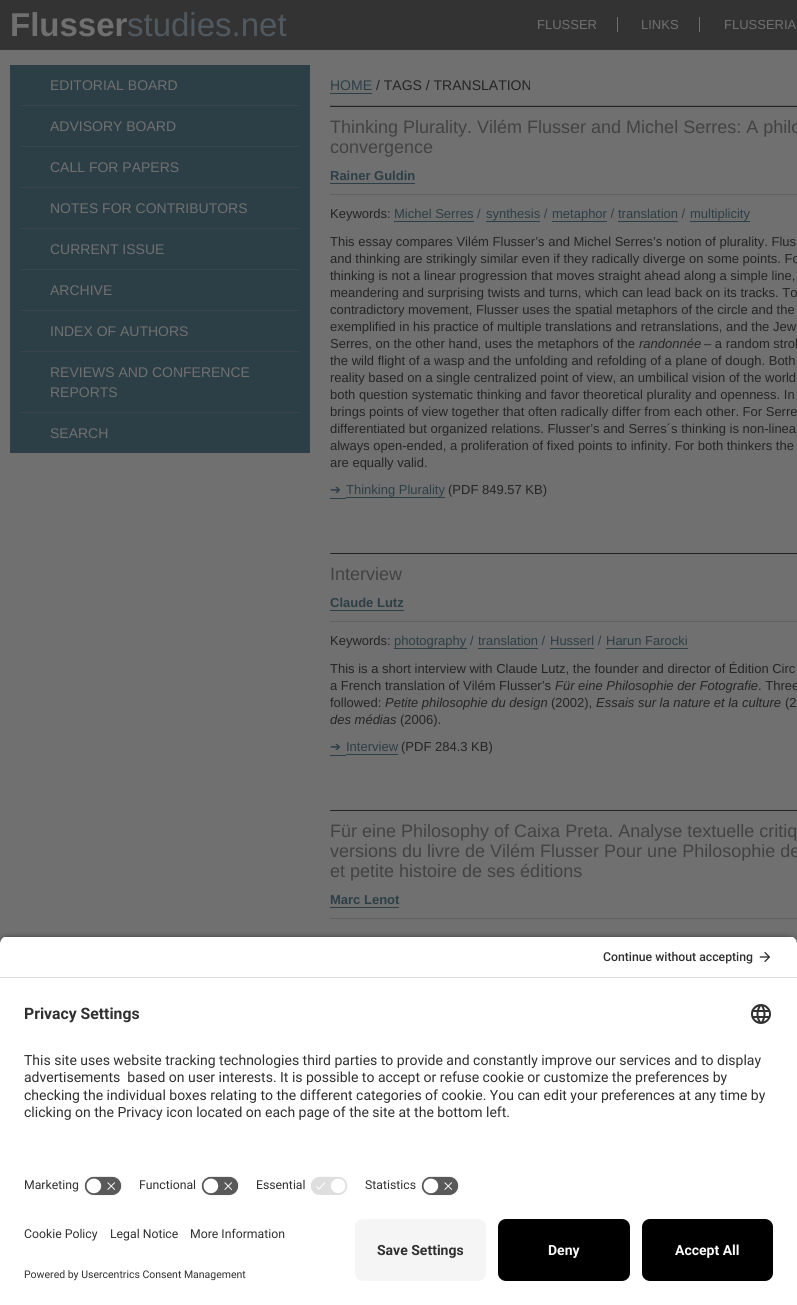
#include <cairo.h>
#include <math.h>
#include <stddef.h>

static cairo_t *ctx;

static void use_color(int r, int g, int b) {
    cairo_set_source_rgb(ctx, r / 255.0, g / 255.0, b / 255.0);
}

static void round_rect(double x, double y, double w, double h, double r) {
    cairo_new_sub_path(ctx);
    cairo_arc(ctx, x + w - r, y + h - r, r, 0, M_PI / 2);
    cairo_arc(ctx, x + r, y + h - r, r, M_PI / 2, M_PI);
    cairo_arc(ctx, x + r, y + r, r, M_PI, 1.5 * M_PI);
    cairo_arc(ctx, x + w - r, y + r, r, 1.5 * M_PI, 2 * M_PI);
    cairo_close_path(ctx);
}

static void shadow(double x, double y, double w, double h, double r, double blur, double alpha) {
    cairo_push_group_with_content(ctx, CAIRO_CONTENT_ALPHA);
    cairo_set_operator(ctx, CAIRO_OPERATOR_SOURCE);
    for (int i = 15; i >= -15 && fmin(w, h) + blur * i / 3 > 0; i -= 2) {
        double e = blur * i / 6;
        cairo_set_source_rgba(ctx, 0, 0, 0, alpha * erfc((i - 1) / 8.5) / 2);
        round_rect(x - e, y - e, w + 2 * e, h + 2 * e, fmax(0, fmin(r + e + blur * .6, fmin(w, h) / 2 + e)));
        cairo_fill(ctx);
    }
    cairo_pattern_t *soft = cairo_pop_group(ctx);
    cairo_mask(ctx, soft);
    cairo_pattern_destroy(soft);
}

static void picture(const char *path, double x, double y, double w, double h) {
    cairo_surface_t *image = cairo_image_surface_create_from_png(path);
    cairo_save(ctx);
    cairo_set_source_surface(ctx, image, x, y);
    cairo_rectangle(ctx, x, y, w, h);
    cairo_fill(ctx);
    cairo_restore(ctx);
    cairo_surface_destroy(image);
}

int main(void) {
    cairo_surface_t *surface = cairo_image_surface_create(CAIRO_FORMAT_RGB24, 797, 1305);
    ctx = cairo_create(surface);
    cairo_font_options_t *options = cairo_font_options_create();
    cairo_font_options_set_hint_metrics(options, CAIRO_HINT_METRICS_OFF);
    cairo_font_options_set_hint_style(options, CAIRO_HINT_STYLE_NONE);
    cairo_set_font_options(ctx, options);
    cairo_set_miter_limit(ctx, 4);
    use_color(112, 112, 112);
    cairo_paint(ctx);
    use_color(51, 51, 51);
    cairo_rectangle(ctx, 0, 0, 797, 50);
    cairo_fill(ctx);
    cairo_select_font_face(ctx, "Liberation Sans", CAIRO_FONT_SLANT_NORMAL, CAIRO_FONT_WEIGHT_BOLD);
    cairo_set_font_size(ctx, 33);
    use_color(112, 112, 112);
    cairo_move_to(ctx, 10, 36);
    cairo_show_text(ctx, "Flusser");
    cairo_select_font_face(ctx, "Liberation Sans", CAIRO_FONT_SLANT_NORMAL, CAIRO_FONT_WEIGHT_NORMAL);
    use_color(80, 89, 95);
    cairo_move_to(ctx, 127, 36);
    cairo_show_text(ctx, "studies.net");
    cairo_set_font_size(ctx, 13);
    use_color(112, 112, 112);
    cairo_move_to(ctx, 537, 29);
    cairo_show_text(ctx, "FLUSSER");
    cairo_rectangle(ctx, 617, 17, 1, 15);
    cairo_fill(ctx);
    cairo_move_to(ctx, 641, 29);
    cairo_show_text(ctx, "LINKS");
    cairo_rectangle(ctx, 699, 17, 1, 15);
    cairo_fill(ctx);
    cairo_move_to(ctx, 724, 29);
    cairo_show_text(ctx, "FLUSSERIA");
    use_color(44, 62, 70);
    cairo_rectangle(ctx, 10, 65, 300, 388);
    cairo_fill(ctx);
    use_color(58, 69, 77);
    cairo_rectangle(ctx, 20, 105, 280, 1);
    cairo_fill(ctx);
    cairo_set_font_size(ctx, 14);
    use_color(112, 112, 112);
    cairo_move_to(ctx, 50, 90);
    cairo_show_text(ctx, "EDITORIAL BOARD");
    use_color(58, 69, 77);
    cairo_rectangle(ctx, 20, 146, 280, 1);
    cairo_fill(ctx);
    use_color(112, 112, 112);
    cairo_move_to(ctx, 50, 131);
    cairo_show_text(ctx, "ADVISORY BOARD");
    use_color(58, 69, 77);
    cairo_rectangle(ctx, 20, 187, 280, 1);
    cairo_fill(ctx);
    use_color(112, 112, 112);
    cairo_move_to(ctx, 50, 172);
    cairo_show_text(ctx, "CALL FOR PAPERS");
    use_color(58, 69, 77);
    cairo_rectangle(ctx, 20, 228, 280, 1);
    cairo_fill(ctx);
    use_color(112, 112, 112);
    cairo_move_to(ctx, 50, 213);
    cairo_show_text(ctx, "NOTES FOR CONTRIBUTORS");
    use_color(58, 69, 77);
    cairo_rectangle(ctx, 20, 269, 280, 1);
    cairo_fill(ctx);
    use_color(112, 112, 112);
    cairo_move_to(ctx, 50, 254);
    cairo_show_text(ctx, "CURRENT ISSUE");
    use_color(58, 69, 77);
    cairo_rectangle(ctx, 20, 310, 280, 1);
    cairo_fill(ctx);
    use_color(112, 112, 112);
    cairo_move_to(ctx, 50, 295);
    cairo_show_text(ctx, "ARCHIVE");
    use_color(58, 69, 77);
    cairo_rectangle(ctx, 20, 351, 280, 1);
    cairo_fill(ctx);
    use_color(112, 112, 112);
    cairo_move_to(ctx, 50, 336);
    cairo_show_text(ctx, "INDEX OF AUTHORS");
    use_color(58, 69, 77);
    cairo_rectangle(ctx, 20, 412, 280, 1);
    cairo_fill(ctx);
    use_color(112, 112, 112);
    cairo_move_to(ctx, 50, 377);
    cairo_show_text(ctx, "REVIEWS AND CONFERENCE");
    cairo_move_to(ctx, 50, 397);
    cairo_show_text(ctx, "REPORTS");
    cairo_move_to(ctx, 50, 438);
    cairo_show_text(ctx, "SEARCH");
    use_color(97, 97, 97);
    cairo_rectangle(ctx, 330, 105, 467, 1);
    cairo_fill(ctx);
    use_color(44, 62, 70);
    cairo_move_to(ctx, 330, 90);
    cairo_show_text(ctx, "HOME");
    cairo_rectangle(ctx, 330, 93, 42, 1);
    cairo_fill(ctx);
    use_color(36, 36, 36);
    cairo_move_to(ctx, 376, 90);
    cairo_show_text(ctx, "/ TAGS / TRANSLATION");
    cairo_rectangle(ctx, 330, 106, 467, 1);
    cairo_fill(ctx);
    cairo_set_font_size(ctx, 18);
    use_color(66, 66, 66);
    cairo_move_to(ctx, 330, 133);
    cairo_show_text(ctx, "Thinking Plurality. Vilém Flusser and Michel Serres: A philo");
    cairo_move_to(ctx, 330, 153);
    cairo_show_text(ctx, "convergence");
    use_color(97, 97, 97);
    cairo_rectangle(ctx, 330, 194, 467, 1);
    cairo_fill(ctx);
    cairo_select_font_face(ctx, "Liberation Sans", CAIRO_FONT_SLANT_NORMAL, CAIRO_FONT_WEIGHT_BOLD);
    cairo_set_font_size(ctx, 13);
    use_color(44, 62, 70);
    cairo_move_to(ctx, 330, 180);
    cairo_show_text(ctx, "Rainer Guldin");
    cairo_rectangle(ctx, 330, 183, 85, 1);
    cairo_fill(ctx);
    cairo_select_font_face(ctx, "Liberation Sans", CAIRO_FONT_SLANT_NORMAL, CAIRO_FONT_WEIGHT_NORMAL);
    use_color(36, 36, 36);
    cairo_move_to(ctx, 330, 218);
    cairo_show_text(ctx, "Keywords:");
    use_color(44, 62, 70);
    cairo_move_to(ctx, 394, 218);
    cairo_show_text(ctx, "Michel Serres /");
    cairo_rectangle(ctx, 394, 221, 80, 1);
    cairo_fill(ctx);
    cairo_move_to(ctx, 486, 218);
    cairo_show_text(ctx, "synthesis /");
    cairo_rectangle(ctx, 486, 221, 54, 1);
    cairo_fill(ctx);
    cairo_move_to(ctx, 552, 218);
    cairo_show_text(ctx, "metaphor /");
    cairo_rectangle(ctx, 552, 221, 55, 1);
    cairo_fill(ctx);
    cairo_move_to(ctx, 618, 218);
    cairo_show_text(ctx, "translation /");
    cairo_rectangle(ctx, 618, 221, 60, 1);
    cairo_fill(ctx);
    cairo_move_to(ctx, 690, 218);
    cairo_show_text(ctx, "multiplicity");
    cairo_rectangle(ctx, 690, 221, 60, 1);
    cairo_fill(ctx);
    use_color(36, 36, 36);
    cairo_move_to(ctx, 330, 246);
    cairo_show_text(ctx, "This essay compares Vilém Flusser’s and Michel Serres’s notion of plurality. Flus");
    cairo_move_to(ctx, 330, 263);
    cairo_show_text(ctx, "and thinking are strikingly similar even if they radically diverge on some points. Fo");
    cairo_move_to(ctx, 330, 280);
    cairo_show_text(ctx, "thinking is not a linear progression that moves straight ahead along a simple line,");
    cairo_move_to(ctx, 330, 297);
    cairo_show_text(ctx, "meandering and surprising twists and turns, which can lead back on its tracks. To");
    cairo_move_to(ctx, 330, 314);
    cairo_show_text(ctx, "contradictory movement, Flusser uses the spatial metaphors of the circle and the");
    cairo_move_to(ctx, 330, 331);
    cairo_show_text(ctx, "exemplified in his practice of multiple translations and retranslations, and the Jew");
    cairo_move_to(ctx, 330, 348);
    cairo_show_text(ctx, "Serres, on the other hand, uses the metaphors of the");
    cairo_select_font_face(ctx, "Liberation Sans", CAIRO_FONT_SLANT_ITALIC, CAIRO_FONT_WEIGHT_NORMAL);
    cairo_move_to(ctx, 639, 348);
    cairo_show_text(ctx, "randonnée");
    cairo_select_font_face(ctx, "Liberation Sans", CAIRO_FONT_SLANT_NORMAL, CAIRO_FONT_WEIGHT_NORMAL);
    cairo_move_to(ctx, 704, 348);
    cairo_show_text(ctx, "– a random strol");
    cairo_move_to(ctx, 330, 365);
    cairo_show_text(ctx, "the wild flight of a wasp and the unfolding and refolding of a plane of dough. Both");
    cairo_move_to(ctx, 330, 382);
    cairo_show_text(ctx, "reality based on a single centralized point of view, an umbilical vision of the world");
    cairo_move_to(ctx, 330, 399);
    cairo_show_text(ctx, "both question systematic thinking and favor theoretical plurality and openness. In");
    cairo_move_to(ctx, 330, 416);
    cairo_show_text(ctx, "brings points of view together that often radically differ from each other. For Serre");
    cairo_move_to(ctx, 330, 433);
    cairo_show_text(ctx, "differentiated but organized relations. Flusser’s and Serres´s thinking is non-linea");
    cairo_move_to(ctx, 330, 450);
    cairo_show_text(ctx, "always open-ended, a proliferation of fixed points to infinity. For both thinkers the");
    cairo_move_to(ctx, 330, 467);
    cairo_show_text(ctx, "are equally valid.");
    cairo_select_font_face(ctx, "DejaVu Sans", CAIRO_FONT_SLANT_NORMAL, CAIRO_FONT_WEIGHT_NORMAL);
    use_color(44, 62, 70);
    cairo_move_to(ctx, 330, 494);
    cairo_show_text(ctx, "➔");
    cairo_select_font_face(ctx, "Liberation Sans", CAIRO_FONT_SLANT_NORMAL, CAIRO_FONT_WEIGHT_NORMAL);
    cairo_move_to(ctx, 346, 494);
    cairo_show_text(ctx, "Thinking Plurality");
    cairo_rectangle(ctx, 330, 498, 16, 1);
    cairo_fill(ctx);
    cairo_rectangle(ctx, 346, 497, 99, 1);
    cairo_fill(ctx);
    use_color(36, 36, 36);
    cairo_move_to(ctx, 448, 494);
    cairo_show_text(ctx, "(PDF 849.57 KB)");
    cairo_rectangle(ctx, 330, 553, 467, 1);
    cairo_fill(ctx);
    cairo_set_font_size(ctx, 18);
    use_color(66, 66, 66);
    cairo_move_to(ctx, 330, 580);
    cairo_show_text(ctx, "Interview");
    use_color(97, 97, 97);
    cairo_rectangle(ctx, 330, 621, 467, 1);
    cairo_fill(ctx);
    cairo_select_font_face(ctx, "Liberation Sans", CAIRO_FONT_SLANT_NORMAL, CAIRO_FONT_WEIGHT_BOLD);
    cairo_set_font_size(ctx, 13);
    use_color(44, 62, 70);
    cairo_move_to(ctx, 330, 607);
    cairo_show_text(ctx, "Claude Lutz");
    cairo_rectangle(ctx, 330, 610, 74, 1);
    cairo_fill(ctx);
    cairo_select_font_face(ctx, "Liberation Sans", CAIRO_FONT_SLANT_NORMAL, CAIRO_FONT_WEIGHT_NORMAL);
    use_color(36, 36, 36);
    cairo_move_to(ctx, 330, 645);
    cairo_show_text(ctx, "Keywords:");
    use_color(44, 62, 70);
    cairo_move_to(ctx, 394, 645);
    cairo_show_text(ctx, "photography /");
    cairo_rectangle(ctx, 394, 648, 73, 1);
    cairo_fill(ctx);
    cairo_move_to(ctx, 478, 645);
    cairo_show_text(ctx, "translation /");
    cairo_rectangle(ctx, 478, 648, 60, 1);
    cairo_fill(ctx);
    cairo_move_to(ctx, 550, 645);
    cairo_show_text(ctx, "Husserl /");
    cairo_rectangle(ctx, 550, 648, 44, 1);
    cairo_fill(ctx);
    cairo_move_to(ctx, 606, 645);
    cairo_show_text(ctx, "Harun Farocki");
    cairo_rectangle(ctx, 606, 648, 82, 1);
    cairo_fill(ctx);
    use_color(36, 36, 36);
    cairo_move_to(ctx, 330, 673);
    cairo_show_text(ctx, "This is a short interview with Claude Lutz, the founder and director of Édition Circ");
    cairo_move_to(ctx, 330, 690);
    cairo_show_text(ctx, "a French translation of Vilém Flusser’s");
    cairo_select_font_face(ctx, "Liberation Sans", CAIRO_FONT_SLANT_ITALIC, CAIRO_FONT_WEIGHT_NORMAL);
    cairo_move_to(ctx, 555, 690);
    cairo_show_text(ctx, "Für eine Philosophie der Fotografie");
    cairo_select_font_face(ctx, "Liberation Sans", CAIRO_FONT_SLANT_NORMAL, CAIRO_FONT_WEIGHT_NORMAL);
    cairo_move_to(ctx, 758, 690);
    cairo_show_text(ctx, ". Three");
    cairo_move_to(ctx, 330, 707);
    cairo_show_text(ctx, "followed:");
    cairo_select_font_face(ctx, "Liberation Sans", CAIRO_FONT_SLANT_ITALIC, CAIRO_FONT_WEIGHT_NORMAL);
    cairo_move_to(ctx, 385, 707);
    cairo_show_text(ctx, "Petite philosophie du design");
    cairo_select_font_face(ctx, "Liberation Sans", CAIRO_FONT_SLANT_NORMAL, CAIRO_FONT_WEIGHT_NORMAL);
    cairo_move_to(ctx, 551, 707);
    cairo_show_text(ctx, "(2002),");
    cairo_select_font_face(ctx, "Liberation Sans", CAIRO_FONT_SLANT_ITALIC, CAIRO_FONT_WEIGHT_NORMAL);
    cairo_move_to(ctx, 596, 707);
    cairo_show_text(ctx, "Essais sur la nature et la culture");
    cairo_select_font_face(ctx, "Liberation Sans", CAIRO_FONT_SLANT_NORMAL, CAIRO_FONT_WEIGHT_NORMAL);
    cairo_move_to(ctx, 785, 707);
    cairo_show_text(ctx, "(2");
    cairo_select_font_face(ctx, "Liberation Sans", CAIRO_FONT_SLANT_ITALIC, CAIRO_FONT_WEIGHT_NORMAL);
    cairo_move_to(ctx, 330, 724);
    cairo_show_text(ctx, "des médias");
    cairo_select_font_face(ctx, "Liberation Sans", CAIRO_FONT_SLANT_NORMAL, CAIRO_FONT_WEIGHT_NORMAL);
    cairo_move_to(ctx, 400, 724);
    cairo_show_text(ctx, "(2006).");
    cairo_select_font_face(ctx, "DejaVu Sans", CAIRO_FONT_SLANT_NORMAL, CAIRO_FONT_WEIGHT_NORMAL);
    use_color(44, 62, 70);
    cairo_move_to(ctx, 330, 751);
    cairo_show_text(ctx, "➔");
    cairo_rectangle(ctx, 330, 755, 16, 1);
    cairo_fill(ctx);
    cairo_select_font_face(ctx, "Liberation Sans", CAIRO_FONT_SLANT_NORMAL, CAIRO_FONT_WEIGHT_NORMAL);
    cairo_move_to(ctx, 346, 751);
    cairo_show_text(ctx, "Interview");
    cairo_rectangle(ctx, 346, 754, 52, 1);
    cairo_fill(ctx);
    use_color(36, 36, 36);
    cairo_move_to(ctx, 401, 751);
    cairo_show_text(ctx, "(PDF 284.3 KB)");
    cairo_rectangle(ctx, 330, 810, 467, 1);
    cairo_fill(ctx);
    cairo_set_font_size(ctx, 18);
    use_color(66, 66, 66);
    cairo_move_to(ctx, 330, 837);
    cairo_show_text(ctx, "Für eine Philosophy of Caixa Preta. Analyse textuelle critiq");
    cairo_move_to(ctx, 330, 857);
    cairo_show_text(ctx, "versions du livre de Vilém Flusser Pour une Philosophie de");
    cairo_move_to(ctx, 330, 877);
    cairo_show_text(ctx, "et petite histoire de ses éditions");
    use_color(97, 97, 97);
    cairo_rectangle(ctx, 330, 918, 467, 1);
    cairo_fill(ctx);
    cairo_select_font_face(ctx, "Liberation Sans", CAIRO_FONT_SLANT_NORMAL, CAIRO_FONT_WEIGHT_BOLD);
    cairo_set_font_size(ctx, 13);
    use_color(44, 62, 70);
    cairo_move_to(ctx, 330, 904);
    cairo_show_text(ctx, "Marc Lenot");
    cairo_rectangle(ctx, 330, 907, 69, 1);
    cairo_fill(ctx);
    use_color(0, 0, 0);
    shadow(0, 939, 797, 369, 8, 3.5, 0.8);
    cairo_save(ctx);
    cairo_new_path(ctx);
    cairo_move_to(ctx, 8, 936);
    cairo_line_to(ctx, 789, 936);
    cairo_curve_to(ctx, 793.5, 936, 797, 939.5, 797, 944);
    cairo_line_to(ctx, 797, 1211);
    cairo_line_to(ctx, 0, 1211);
    cairo_line_to(ctx, 0, 944);
    cairo_curve_to(ctx, 0, 939.5, 3.5, 936, 8, 936);
    cairo_close_path(ctx);
    cairo_clip(ctx);
    use_color(255, 255, 255);
    cairo_rectangle(ctx, 0, 937, 797, 40);
    cairo_fill(ctx);
    cairo_restore(ctx);
    use_color(222, 222, 222);
    cairo_rectangle(ctx, 0, 977, 797, 1);
    cairo_fill(ctx);
    cairo_select_font_face(ctx, "Roboto Medium", CAIRO_FONT_SLANT_NORMAL, CAIRO_FONT_WEIGHT_NORMAL);
    cairo_set_font_size(ctx, 12.25);
    use_color(48, 48, 48);
    cairo_move_to(ctx, 603, 961);
    cairo_show_text(ctx, "Continue without accepting");
    picture("img1.png", 759, 952, 11, 10);
    use_color(255, 255, 255);
    cairo_rectangle(ctx, 0, 978, 797, 327);
    cairo_fill(ctx);
    cairo_select_font_face(ctx, "Roboto", CAIRO_FONT_SLANT_NORMAL, CAIRO_FONT_WEIGHT_BOLD);
    cairo_set_font_size(ctx, 15.75);
    use_color(48, 48, 48);
    cairo_move_to(ctx, 24, 1019);
    cairo_show_text(ctx, "Privacy Settings");
    picture("img2.png", 751, 1004, 20, 20);
    cairo_select_font_face(ctx, "Roboto", CAIRO_FONT_SLANT_NORMAL, CAIRO_FONT_WEIGHT_NORMAL);
    cairo_set_font_size(ctx, 14);
    cairo_move_to(ctx, 24, 1065);
    cairo_show_text(ctx, "This site uses website tracking technologies third parties to provide and constantly improve our services and to display");
    cairo_move_to(ctx, 24, 1082);
    cairo_show_text(ctx, "advertisements  based on user interests. It is possible to accept or refuse cookie or customize the preferences by");
    cairo_move_to(ctx, 24, 1100);
    cairo_show_text(ctx, "checking the individual boxes relating to the different categories of cookie. You can edit your preferences at any time by");
    cairo_move_to(ctx, 24, 1117);
    cairo_show_text(ctx, "clicking on the Privacy icon located on each page of the site at the bottom left.");
    cairo_set_font_size(ctx, 12.25);
    cairo_move_to(ctx, 24, 1189);
    cairo_show_text(ctx, "Marketing");
    picture("img3.png", 84, 1176, 38, 20);
    cairo_move_to(ctx, 139, 1189);
    cairo_show_text(ctx, "Functional");
    picture("img3.png", 201, 1176, 38, 20);
    cairo_move_to(ctx, 256, 1189);
    cairo_show_text(ctx, "Essential");
    picture("img4.png", 310, 1176, 38, 19);
    cairo_move_to(ctx, 365, 1189);
    cairo_show_text(ctx, "Statistics");
    picture("img3.png", 421, 1176, 38, 20);
    cairo_move_to(ctx, 24, 1238);
    cairo_show_text(ctx, "Cookie Policy");
    cairo_move_to(ctx, 110, 1238);
    cairo_show_text(ctx, "Legal Notice");
    cairo_move_to(ctx, 190, 1238);
    cairo_show_text(ctx, "More Information");
    cairo_set_font_size(ctx, 10.5);
    cairo_move_to(ctx, 24, 1278);
    cairo_show_text(ctx, "Powered by Usercentrics Consent Management");
    use_color(245, 245, 245);
    round_rect(355, 1219, 131, 62, 8);
    cairo_fill(ctx);
    cairo_select_font_face(ctx, "Roboto", CAIRO_FONT_SLANT_NORMAL, CAIRO_FONT_WEIGHT_BOLD);
    cairo_set_font_size(ctx, 14);
    use_color(48, 48, 48);
    cairo_move_to(ctx, 377, 1255);
    cairo_show_text(ctx, "Save Settings");
    use_color(0, 0, 0);
    round_rect(498, 1219, 132, 62, 8);
    cairo_fill(ctx);
    use_color(250, 250, 250);
    cairo_move_to(ctx, 548, 1255);
    cairo_show_text(ctx, "Deny");
    use_color(0, 0, 0);
    round_rect(642, 1219, 131, 62, 8);
    cairo_fill(ctx);
    use_color(250, 250, 250);
    cairo_move_to(ctx, 675, 1255);
    cairo_show_text(ctx, "Accept All");
    cairo_surface_write_to_png(surface, "result.png");
    cairo_font_options_destroy(options);
    cairo_destroy(ctx);
    cairo_surface_destroy(surface);
    return 0;
}
